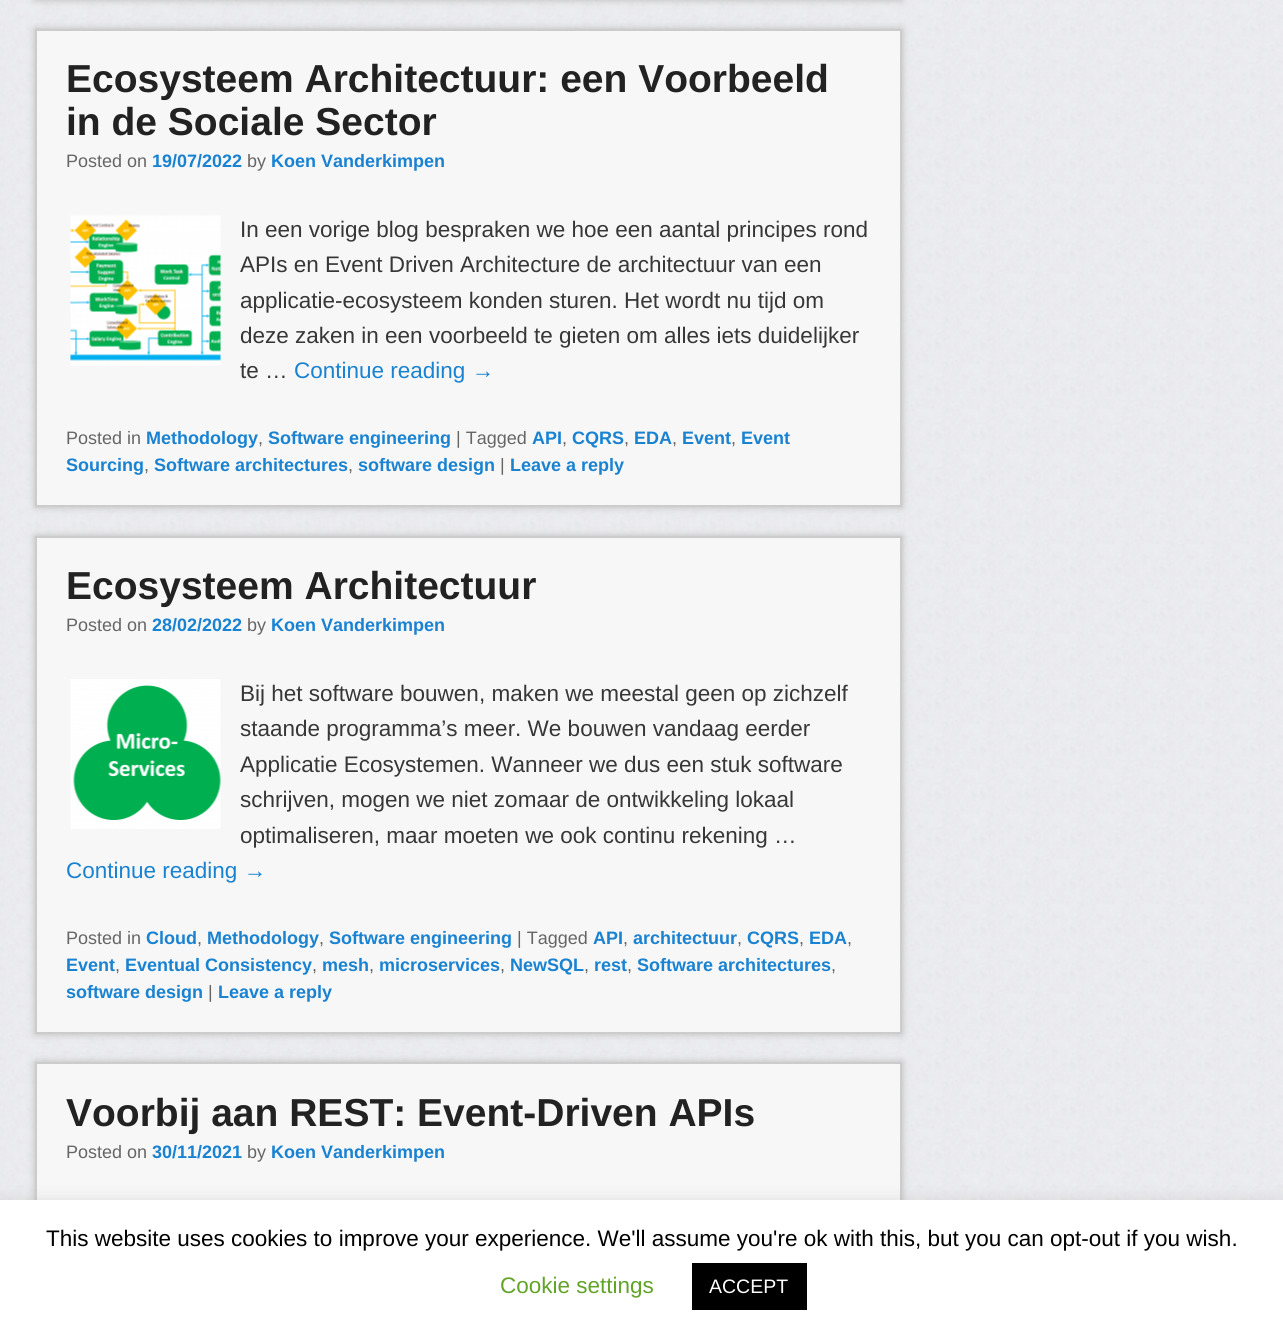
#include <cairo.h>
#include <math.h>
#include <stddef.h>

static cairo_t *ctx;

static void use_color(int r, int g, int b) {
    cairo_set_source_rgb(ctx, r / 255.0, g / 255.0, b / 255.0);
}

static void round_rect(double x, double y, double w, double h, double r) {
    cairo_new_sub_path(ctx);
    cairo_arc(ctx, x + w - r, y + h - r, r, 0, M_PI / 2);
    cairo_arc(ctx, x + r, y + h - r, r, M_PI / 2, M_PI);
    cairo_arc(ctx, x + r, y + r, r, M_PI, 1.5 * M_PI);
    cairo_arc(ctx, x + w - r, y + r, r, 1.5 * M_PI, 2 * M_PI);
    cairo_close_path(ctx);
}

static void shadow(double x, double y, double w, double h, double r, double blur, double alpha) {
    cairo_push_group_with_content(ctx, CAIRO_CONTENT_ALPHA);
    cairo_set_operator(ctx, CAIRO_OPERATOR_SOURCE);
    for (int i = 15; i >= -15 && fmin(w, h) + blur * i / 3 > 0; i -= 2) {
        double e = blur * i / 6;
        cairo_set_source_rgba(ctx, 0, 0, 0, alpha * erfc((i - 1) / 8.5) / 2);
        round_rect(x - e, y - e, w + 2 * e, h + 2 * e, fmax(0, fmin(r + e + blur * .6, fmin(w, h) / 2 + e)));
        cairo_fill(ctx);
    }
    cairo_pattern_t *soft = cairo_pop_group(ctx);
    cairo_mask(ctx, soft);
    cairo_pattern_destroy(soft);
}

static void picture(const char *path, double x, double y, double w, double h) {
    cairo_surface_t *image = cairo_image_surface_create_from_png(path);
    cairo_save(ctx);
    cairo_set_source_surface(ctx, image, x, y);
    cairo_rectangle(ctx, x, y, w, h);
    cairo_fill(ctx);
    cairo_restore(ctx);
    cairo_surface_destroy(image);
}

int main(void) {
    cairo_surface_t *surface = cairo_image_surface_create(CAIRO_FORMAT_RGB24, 1283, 1334);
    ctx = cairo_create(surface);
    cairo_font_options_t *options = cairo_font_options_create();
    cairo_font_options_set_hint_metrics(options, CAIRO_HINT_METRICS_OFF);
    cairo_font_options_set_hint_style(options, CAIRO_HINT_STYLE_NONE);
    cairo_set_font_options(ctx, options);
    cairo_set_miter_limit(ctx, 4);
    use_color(255, 255, 255);
    cairo_paint(ctx);
    picture("img1.png", 0, 0, 1283, 1200);
    use_color(187, 187, 187);
    shadow(35, -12, 867, 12, 0, 4, 1);
    shadow(35, 29, 867, 478, 0, 4, 1);
    use_color(247, 247, 247);
    cairo_rectangle(ctx, 36, 30, 865, 476);
    cairo_fill_preserve(ctx);
    use_color(204, 204, 204);
    cairo_stroke(ctx);
    cairo_select_font_face(ctx, "Liberation Sans", CAIRO_FONT_SLANT_NORMAL, CAIRO_FONT_WEIGHT_BOLD);
    cairo_set_font_size(ctx, 39);
    use_color(34, 34, 34);
    cairo_move_to(ctx, 66, 92);
    cairo_show_text(ctx, "Ecosysteem Architectuur: een Voorbeeld");
    cairo_move_to(ctx, 66, 135);
    cairo_show_text(ctx, "in de Sociale Sector");
    cairo_select_font_face(ctx, "Liberation Sans", CAIRO_FONT_SLANT_NORMAL, CAIRO_FONT_WEIGHT_NORMAL);
    cairo_set_font_size(ctx, 18);
    use_color(102, 102, 102);
    cairo_move_to(ctx, 66, 167);
    cairo_show_text(ctx, "Posted on");
    cairo_select_font_face(ctx, "Liberation Sans", CAIRO_FONT_SLANT_NORMAL, CAIRO_FONT_WEIGHT_BOLD);
    use_color(25, 130, 209);
    cairo_move_to(ctx, 152, 167);
    cairo_show_text(ctx, "19/07/2022");
    cairo_select_font_face(ctx, "Liberation Sans", CAIRO_FONT_SLANT_NORMAL, CAIRO_FONT_WEIGHT_NORMAL);
    use_color(102, 102, 102);
    cairo_move_to(ctx, 247, 167);
    cairo_show_text(ctx, "by");
    cairo_select_font_face(ctx, "Liberation Sans", CAIRO_FONT_SLANT_NORMAL, CAIRO_FONT_WEIGHT_BOLD);
    use_color(25, 130, 209);
    cairo_move_to(ctx, 271, 167);
    cairo_show_text(ctx, "Koen Vanderkimpen");
    picture("img2.png", 70, 215, 151, 151);
    cairo_select_font_face(ctx, "Liberation Sans", CAIRO_FONT_SLANT_NORMAL, CAIRO_FONT_WEIGHT_NORMAL);
    cairo_set_font_size(ctx, 22.5);
    use_color(55, 55, 55);
    cairo_move_to(ctx, 240, 237);
    cairo_show_text(ctx, "In een vorige blog bespraken we hoe een aantal principes rond");
    cairo_move_to(ctx, 240, 272);
    cairo_show_text(ctx, "APIs en Event Driven Architecture de architectuur van een");
    cairo_move_to(ctx, 240, 308);
    cairo_show_text(ctx, "applicatie-ecosysteem konden sturen. Het wordt nu tijd om");
    cairo_move_to(ctx, 240, 343);
    cairo_show_text(ctx, "deze zaken in een voorbeeld te gieten om alles iets duidelijker");
    cairo_move_to(ctx, 240, 378);
    cairo_show_text(ctx, "te …");
    use_color(25, 130, 209);
    cairo_move_to(ctx, 294, 378);
    cairo_show_text(ctx, "Continue reading →");
    cairo_set_font_size(ctx, 18);
    use_color(102, 102, 102);
    cairo_move_to(ctx, 66, 444);
    cairo_show_text(ctx, "Posted in");
    cairo_select_font_face(ctx, "Liberation Sans", CAIRO_FONT_SLANT_NORMAL, CAIRO_FONT_WEIGHT_BOLD);
    use_color(25, 130, 209);
    cairo_move_to(ctx, 146, 444);
    cairo_show_text(ctx, "Methodology");
    cairo_select_font_face(ctx, "Liberation Sans", CAIRO_FONT_SLANT_NORMAL, CAIRO_FONT_WEIGHT_NORMAL);
    use_color(102, 102, 102);
    cairo_move_to(ctx, 258, 444);
    cairo_show_text(ctx, ",");
    cairo_select_font_face(ctx, "Liberation Sans", CAIRO_FONT_SLANT_NORMAL, CAIRO_FONT_WEIGHT_BOLD);
    use_color(25, 130, 209);
    cairo_move_to(ctx, 268, 444);
    cairo_show_text(ctx, "Software engineering");
    cairo_select_font_face(ctx, "Liberation Sans", CAIRO_FONT_SLANT_NORMAL, CAIRO_FONT_WEIGHT_NORMAL);
    use_color(102, 102, 102);
    cairo_move_to(ctx, 456, 444);
    cairo_show_text(ctx, "| Tagged");
    cairo_select_font_face(ctx, "Liberation Sans", CAIRO_FONT_SLANT_NORMAL, CAIRO_FONT_WEIGHT_BOLD);
    use_color(25, 130, 209);
    cairo_move_to(ctx, 532, 444);
    cairo_show_text(ctx, "API");
    cairo_select_font_face(ctx, "Liberation Sans", CAIRO_FONT_SLANT_NORMAL, CAIRO_FONT_WEIGHT_NORMAL);
    use_color(102, 102, 102);
    cairo_move_to(ctx, 562, 444);
    cairo_show_text(ctx, ",");
    cairo_select_font_face(ctx, "Liberation Sans", CAIRO_FONT_SLANT_NORMAL, CAIRO_FONT_WEIGHT_BOLD);
    use_color(25, 130, 209);
    cairo_move_to(ctx, 572, 444);
    cairo_show_text(ctx, "CQRS");
    cairo_select_font_face(ctx, "Liberation Sans", CAIRO_FONT_SLANT_NORMAL, CAIRO_FONT_WEIGHT_NORMAL);
    use_color(102, 102, 102);
    cairo_move_to(ctx, 624, 444);
    cairo_show_text(ctx, ",");
    cairo_select_font_face(ctx, "Liberation Sans", CAIRO_FONT_SLANT_NORMAL, CAIRO_FONT_WEIGHT_BOLD);
    use_color(25, 130, 209);
    cairo_move_to(ctx, 634, 444);
    cairo_show_text(ctx, "EDA");
    cairo_select_font_face(ctx, "Liberation Sans", CAIRO_FONT_SLANT_NORMAL, CAIRO_FONT_WEIGHT_NORMAL);
    use_color(102, 102, 102);
    cairo_move_to(ctx, 672, 444);
    cairo_show_text(ctx, ",");
    cairo_select_font_face(ctx, "Liberation Sans", CAIRO_FONT_SLANT_NORMAL, CAIRO_FONT_WEIGHT_BOLD);
    use_color(25, 130, 209);
    cairo_move_to(ctx, 682, 444);
    cairo_show_text(ctx, "Event");
    cairo_select_font_face(ctx, "Liberation Sans", CAIRO_FONT_SLANT_NORMAL, CAIRO_FONT_WEIGHT_NORMAL);
    use_color(102, 102, 102);
    cairo_move_to(ctx, 731, 444);
    cairo_show_text(ctx, ",");
    cairo_select_font_face(ctx, "Liberation Sans", CAIRO_FONT_SLANT_NORMAL, CAIRO_FONT_WEIGHT_BOLD);
    use_color(25, 130, 209);
    cairo_move_to(ctx, 741, 444);
    cairo_show_text(ctx, "Event");
    cairo_move_to(ctx, 66, 471);
    cairo_show_text(ctx, "Sourcing");
    cairo_select_font_face(ctx, "Liberation Sans", CAIRO_FONT_SLANT_NORMAL, CAIRO_FONT_WEIGHT_NORMAL);
    use_color(102, 102, 102);
    cairo_move_to(ctx, 144, 471);
    cairo_show_text(ctx, ",");
    cairo_select_font_face(ctx, "Liberation Sans", CAIRO_FONT_SLANT_NORMAL, CAIRO_FONT_WEIGHT_BOLD);
    use_color(25, 130, 209);
    cairo_move_to(ctx, 154, 471);
    cairo_show_text(ctx, "Software architectures");
    cairo_select_font_face(ctx, "Liberation Sans", CAIRO_FONT_SLANT_NORMAL, CAIRO_FONT_WEIGHT_NORMAL);
    use_color(102, 102, 102);
    cairo_move_to(ctx, 348, 471);
    cairo_show_text(ctx, ",");
    cairo_select_font_face(ctx, "Liberation Sans", CAIRO_FONT_SLANT_NORMAL, CAIRO_FONT_WEIGHT_BOLD);
    use_color(25, 130, 209);
    cairo_move_to(ctx, 358, 471);
    cairo_show_text(ctx, "software design");
    cairo_select_font_face(ctx, "Liberation Sans", CAIRO_FONT_SLANT_NORMAL, CAIRO_FONT_WEIGHT_NORMAL);
    use_color(102, 102, 102);
    cairo_move_to(ctx, 500, 471);
    cairo_show_text(ctx, "|");
    cairo_select_font_face(ctx, "Liberation Sans", CAIRO_FONT_SLANT_NORMAL, CAIRO_FONT_WEIGHT_BOLD);
    use_color(25, 130, 209);
    cairo_move_to(ctx, 510, 471);
    cairo_show_text(ctx, "Leave a reply");
    use_color(187, 187, 187);
    shadow(35, 536, 867, 498, 0, 4, 1);
    use_color(247, 247, 247);
    cairo_rectangle(ctx, 36, 537, 865, 496);
    cairo_fill_preserve(ctx);
    use_color(204, 204, 204);
    cairo_stroke(ctx);
    cairo_set_font_size(ctx, 39);
    use_color(34, 34, 34);
    cairo_move_to(ctx, 66, 599);
    cairo_show_text(ctx, "Ecosysteem Architectuur");
    cairo_select_font_face(ctx, "Liberation Sans", CAIRO_FONT_SLANT_NORMAL, CAIRO_FONT_WEIGHT_NORMAL);
    cairo_set_font_size(ctx, 18);
    use_color(102, 102, 102);
    cairo_move_to(ctx, 66, 631);
    cairo_show_text(ctx, "Posted on");
    cairo_select_font_face(ctx, "Liberation Sans", CAIRO_FONT_SLANT_NORMAL, CAIRO_FONT_WEIGHT_BOLD);
    use_color(25, 130, 209);
    cairo_move_to(ctx, 152, 631);
    cairo_show_text(ctx, "28/02/2022");
    cairo_select_font_face(ctx, "Liberation Sans", CAIRO_FONT_SLANT_NORMAL, CAIRO_FONT_WEIGHT_NORMAL);
    use_color(102, 102, 102);
    cairo_move_to(ctx, 247, 631);
    cairo_show_text(ctx, "by");
    cairo_select_font_face(ctx, "Liberation Sans", CAIRO_FONT_SLANT_NORMAL, CAIRO_FONT_WEIGHT_BOLD);
    use_color(25, 130, 209);
    cairo_move_to(ctx, 271, 631);
    cairo_show_text(ctx, "Koen Vanderkimpen");
    picture("img3.png", 70, 679, 151, 150);
    cairo_select_font_face(ctx, "Liberation Sans", CAIRO_FONT_SLANT_NORMAL, CAIRO_FONT_WEIGHT_NORMAL);
    cairo_set_font_size(ctx, 22.5);
    use_color(55, 55, 55);
    cairo_move_to(ctx, 240, 701);
    cairo_show_text(ctx, "Bij het software bouwen, maken we meestal geen op zichzelf");
    cairo_move_to(ctx, 240, 736);
    cairo_show_text(ctx, "staande programma’s meer. We bouwen vandaag eerder");
    cairo_move_to(ctx, 240, 772);
    cairo_show_text(ctx, "Applicatie Ecosystemen. Wanneer we dus een stuk software");
    cairo_move_to(ctx, 240, 807);
    cairo_show_text(ctx, "schrijven, mogen we niet zomaar de ontwikkeling lokaal");
    cairo_move_to(ctx, 240, 843);
    cairo_show_text(ctx, "optimaliseren, maar moeten we ook continu rekening …");
    use_color(25, 130, 209);
    cairo_move_to(ctx, 66, 878);
    cairo_show_text(ctx, "Continue reading →");
    cairo_set_font_size(ctx, 18);
    use_color(102, 102, 102);
    cairo_move_to(ctx, 66, 944);
    cairo_show_text(ctx, "Posted in");
    cairo_select_font_face(ctx, "Liberation Sans", CAIRO_FONT_SLANT_NORMAL, CAIRO_FONT_WEIGHT_BOLD);
    use_color(25, 130, 209);
    cairo_move_to(ctx, 146, 944);
    cairo_show_text(ctx, "Cloud");
    cairo_move_to(ctx, 207, 944);
    cairo_show_text(ctx, "Methodology");
    cairo_move_to(ctx, 329, 944);
    cairo_show_text(ctx, "Software engineering");
    cairo_select_font_face(ctx, "Liberation Sans", CAIRO_FONT_SLANT_NORMAL, CAIRO_FONT_WEIGHT_NORMAL);
    use_color(102, 102, 102);
    cairo_move_to(ctx, 517, 944);
    cairo_show_text(ctx, "| Tagged");
    cairo_select_font_face(ctx, "Liberation Sans", CAIRO_FONT_SLANT_NORMAL, CAIRO_FONT_WEIGHT_BOLD);
    use_color(25, 130, 209);
    cairo_move_to(ctx, 593, 944);
    cairo_show_text(ctx, "API");
    cairo_move_to(ctx, 633, 944);
    cairo_show_text(ctx, "architectuur");
    cairo_move_to(ctx, 747, 944);
    cairo_show_text(ctx, "CQRS");
    cairo_move_to(ctx, 809, 944);
    cairo_show_text(ctx, "EDA");
    cairo_select_font_face(ctx, "Liberation Sans", CAIRO_FONT_SLANT_NORMAL, CAIRO_FONT_WEIGHT_NORMAL);
    use_color(102, 102, 102);
    cairo_move_to(ctx, 197, 944);
    cairo_show_text(ctx, ",");
    cairo_move_to(ctx, 319, 944);
    cairo_show_text(ctx, ",");
    cairo_move_to(ctx, 623, 944);
    cairo_show_text(ctx, ",");
    cairo_move_to(ctx, 737, 944);
    cairo_show_text(ctx, ",");
    cairo_move_to(ctx, 799, 944);
    cairo_show_text(ctx, ",");
    cairo_move_to(ctx, 847, 944);
    cairo_show_text(ctx, ",");
    cairo_select_font_face(ctx, "Liberation Sans", CAIRO_FONT_SLANT_NORMAL, CAIRO_FONT_WEIGHT_BOLD);
    use_color(25, 130, 209);
    cairo_move_to(ctx, 66, 971);
    cairo_show_text(ctx, "Event");
    cairo_select_font_face(ctx, "Liberation Sans", CAIRO_FONT_SLANT_NORMAL, CAIRO_FONT_WEIGHT_NORMAL);
    use_color(102, 102, 102);
    cairo_move_to(ctx, 115, 971);
    cairo_show_text(ctx, ",");
    cairo_select_font_face(ctx, "Liberation Sans", CAIRO_FONT_SLANT_NORMAL, CAIRO_FONT_WEIGHT_BOLD);
    use_color(25, 130, 209);
    cairo_move_to(ctx, 125, 971);
    cairo_show_text(ctx, "Eventual Consistency");
    cairo_select_font_face(ctx, "Liberation Sans", CAIRO_FONT_SLANT_NORMAL, CAIRO_FONT_WEIGHT_NORMAL);
    use_color(102, 102, 102);
    cairo_move_to(ctx, 312, 971);
    cairo_show_text(ctx, ",");
    cairo_select_font_face(ctx, "Liberation Sans", CAIRO_FONT_SLANT_NORMAL, CAIRO_FONT_WEIGHT_BOLD);
    use_color(25, 130, 209);
    cairo_move_to(ctx, 322, 971);
    cairo_show_text(ctx, "mesh");
    cairo_select_font_face(ctx, "Liberation Sans", CAIRO_FONT_SLANT_NORMAL, CAIRO_FONT_WEIGHT_NORMAL);
    use_color(102, 102, 102);
    cairo_move_to(ctx, 369, 971);
    cairo_show_text(ctx, ",");
    cairo_select_font_face(ctx, "Liberation Sans", CAIRO_FONT_SLANT_NORMAL, CAIRO_FONT_WEIGHT_BOLD);
    use_color(25, 130, 209);
    cairo_move_to(ctx, 379, 971);
    cairo_show_text(ctx, "microservices");
    cairo_select_font_face(ctx, "Liberation Sans", CAIRO_FONT_SLANT_NORMAL, CAIRO_FONT_WEIGHT_NORMAL);
    use_color(102, 102, 102);
    cairo_move_to(ctx, 500, 971);
    cairo_show_text(ctx, ",");
    cairo_select_font_face(ctx, "Liberation Sans", CAIRO_FONT_SLANT_NORMAL, CAIRO_FONT_WEIGHT_BOLD);
    use_color(25, 130, 209);
    cairo_move_to(ctx, 510, 971);
    cairo_show_text(ctx, "NewSQL");
    cairo_select_font_face(ctx, "Liberation Sans", CAIRO_FONT_SLANT_NORMAL, CAIRO_FONT_WEIGHT_NORMAL);
    use_color(102, 102, 102);
    cairo_move_to(ctx, 584, 971);
    cairo_show_text(ctx, ",");
    cairo_select_font_face(ctx, "Liberation Sans", CAIRO_FONT_SLANT_NORMAL, CAIRO_FONT_WEIGHT_BOLD);
    use_color(25, 130, 209);
    cairo_move_to(ctx, 594, 971);
    cairo_show_text(ctx, "rest");
    cairo_select_font_face(ctx, "Liberation Sans", CAIRO_FONT_SLANT_NORMAL, CAIRO_FONT_WEIGHT_NORMAL);
    use_color(102, 102, 102);
    cairo_move_to(ctx, 627, 971);
    cairo_show_text(ctx, ",");
    cairo_select_font_face(ctx, "Liberation Sans", CAIRO_FONT_SLANT_NORMAL, CAIRO_FONT_WEIGHT_BOLD);
    use_color(25, 130, 209);
    cairo_move_to(ctx, 637, 971);
    cairo_show_text(ctx, "Software architectures");
    cairo_select_font_face(ctx, "Liberation Sans", CAIRO_FONT_SLANT_NORMAL, CAIRO_FONT_WEIGHT_NORMAL);
    use_color(102, 102, 102);
    cairo_move_to(ctx, 831, 971);
    cairo_show_text(ctx, ",");
    cairo_select_font_face(ctx, "Liberation Sans", CAIRO_FONT_SLANT_NORMAL, CAIRO_FONT_WEIGHT_BOLD);
    use_color(25, 130, 209);
    cairo_move_to(ctx, 66, 998);
    cairo_show_text(ctx, "software design");
    cairo_select_font_face(ctx, "Liberation Sans", CAIRO_FONT_SLANT_NORMAL, CAIRO_FONT_WEIGHT_NORMAL);
    use_color(102, 102, 102);
    cairo_move_to(ctx, 208, 998);
    cairo_show_text(ctx, "|");
    cairo_select_font_face(ctx, "Liberation Sans", CAIRO_FONT_SLANT_NORMAL, CAIRO_FONT_WEIGHT_BOLD);
    use_color(25, 130, 209);
    cairo_move_to(ctx, 218, 998);
    cairo_show_text(ctx, "Leave a reply");
    use_color(187, 187, 187);
    shadow(35, 1062, 867, 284, 0, 4, 1);
    use_color(247, 247, 247);
    cairo_rectangle(ctx, 37, 1064, 863, 136);
    cairo_fill(ctx);
    cairo_rectangle(ctx, 36, 1063, 865, 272);
    use_color(204, 204, 204);
    cairo_stroke(ctx);
    cairo_set_font_size(ctx, 39);
    use_color(34, 34, 34);
    cairo_move_to(ctx, 66, 1126);
    cairo_show_text(ctx, "Voorbij aan REST: Event-Driven APIs");
    cairo_select_font_face(ctx, "Liberation Sans", CAIRO_FONT_SLANT_NORMAL, CAIRO_FONT_WEIGHT_NORMAL);
    cairo_set_font_size(ctx, 18);
    use_color(102, 102, 102);
    cairo_move_to(ctx, 66, 1158);
    cairo_show_text(ctx, "Posted on");
    cairo_select_font_face(ctx, "Liberation Sans", CAIRO_FONT_SLANT_NORMAL, CAIRO_FONT_WEIGHT_BOLD);
    use_color(25, 130, 209);
    cairo_move_to(ctx, 152, 1158);
    cairo_show_text(ctx, "30/11/2021");
    cairo_select_font_face(ctx, "Liberation Sans", CAIRO_FONT_SLANT_NORMAL, CAIRO_FONT_WEIGHT_NORMAL);
    use_color(102, 102, 102);
    cairo_move_to(ctx, 247, 1158);
    cairo_show_text(ctx, "by");
    cairo_select_font_face(ctx, "Liberation Sans", CAIRO_FONT_SLANT_NORMAL, CAIRO_FONT_WEIGHT_BOLD);
    use_color(25, 130, 209);
    cairo_move_to(ctx, 271, 1158);
    cairo_show_text(ctx, "Koen Vanderkimpen");
    use_color(172, 171, 171);
    shadow(0, 1199, 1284, 135, 0, 7.5, 0.3);
    use_color(255, 255, 255);
    cairo_rectangle(ctx, 0, 1200, 1283, 134);
    cairo_fill(ctx);
    cairo_select_font_face(ctx, "Liberation Sans", CAIRO_FONT_SLANT_NORMAL, CAIRO_FONT_WEIGHT_NORMAL);
    cairo_set_font_size(ctx, 22.5);
    use_color(0, 0, 0);
    cairo_move_to(ctx, 46, 1246);
    cairo_show_text(ctx, "This website uses cookies to improve your experience. We'll assume you're ok with this, but you can opt-out if you wish.");
    use_color(98, 163, 41);
    cairo_move_to(ctx, 500, 1293);
    cairo_show_text(ctx, "Cookie settings");
    use_color(0, 0, 0);
    cairo_rectangle(ctx, 692, 1263, 115, 47);
    cairo_fill(ctx);
    cairo_set_font_size(ctx, 19.5);
    use_color(255, 255, 255);
    cairo_move_to(ctx, 709, 1293);
    cairo_show_text(ctx, "ACCEPT");
    cairo_surface_write_to_png(surface, "result.png");
    cairo_font_options_destroy(options);
    cairo_destroy(ctx);
    cairo_surface_destroy(surface);
    return 0;
}
